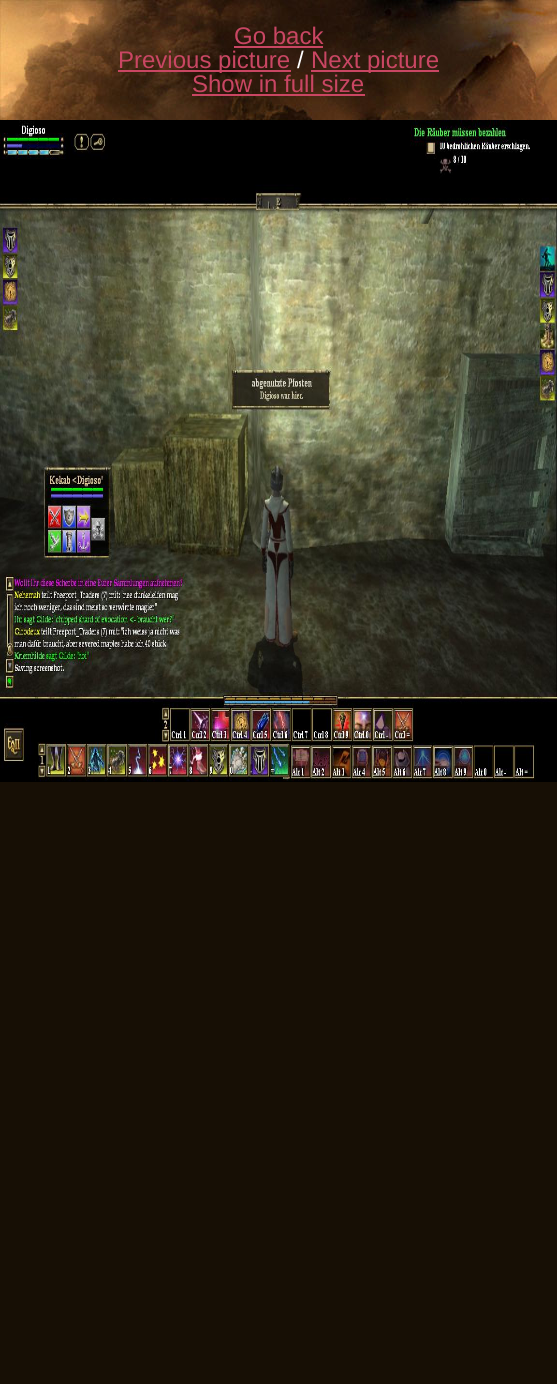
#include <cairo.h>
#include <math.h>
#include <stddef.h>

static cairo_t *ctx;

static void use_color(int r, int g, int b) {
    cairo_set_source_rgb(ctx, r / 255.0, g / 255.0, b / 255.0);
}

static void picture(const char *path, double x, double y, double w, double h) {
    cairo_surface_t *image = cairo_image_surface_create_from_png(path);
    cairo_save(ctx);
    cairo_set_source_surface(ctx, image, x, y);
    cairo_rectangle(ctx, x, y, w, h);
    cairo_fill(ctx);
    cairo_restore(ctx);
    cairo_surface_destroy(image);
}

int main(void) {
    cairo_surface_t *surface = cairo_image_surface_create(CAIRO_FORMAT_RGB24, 557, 1384);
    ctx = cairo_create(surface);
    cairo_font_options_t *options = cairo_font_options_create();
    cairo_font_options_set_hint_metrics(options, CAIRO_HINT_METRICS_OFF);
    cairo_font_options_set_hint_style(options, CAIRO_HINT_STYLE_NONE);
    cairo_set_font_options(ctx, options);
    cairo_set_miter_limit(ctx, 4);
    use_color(23, 15, 5);
    cairo_paint(ctx);
    picture("img1.png", 0, 0, 557, 120);
    cairo_select_font_face(ctx, "Liberation Sans", CAIRO_FONT_SLANT_NORMAL, CAIRO_FONT_WEIGHT_NORMAL);
    cairo_set_font_size(ctx, 24);
    use_color(201, 70, 99);
    cairo_move_to(ctx, 234, 44);
    cairo_show_text(ctx, "Go back");
    cairo_rectangle(ctx, 234, 46, 89, 2);
    cairo_fill(ctx);
    cairo_rectangle(ctx, 118, 70, 173, 2);
    cairo_fill(ctx);
    cairo_move_to(ctx, 118, 68);
    cairo_show_text(ctx, "Previous picture");
    use_color(255, 255, 255);
    cairo_move_to(ctx, 297, 68);
    cairo_show_text(ctx, "/");
    use_color(201, 70, 99);
    cairo_rectangle(ctx, 311, 70, 128, 2);
    cairo_fill(ctx);
    cairo_move_to(ctx, 311, 68);
    cairo_show_text(ctx, "Next picture");
    cairo_move_to(ctx, 192, 92);
    cairo_show_text(ctx, "Show in full size");
    cairo_rectangle(ctx, 192, 94, 173, 2);
    cairo_fill(ctx);
    picture("img2.png", 0, 120, 557, 662);
    cairo_surface_write_to_png(surface, "result.png");
    cairo_font_options_destroy(options);
    cairo_destroy(ctx);
    cairo_surface_destroy(surface);
    return 0;
}
